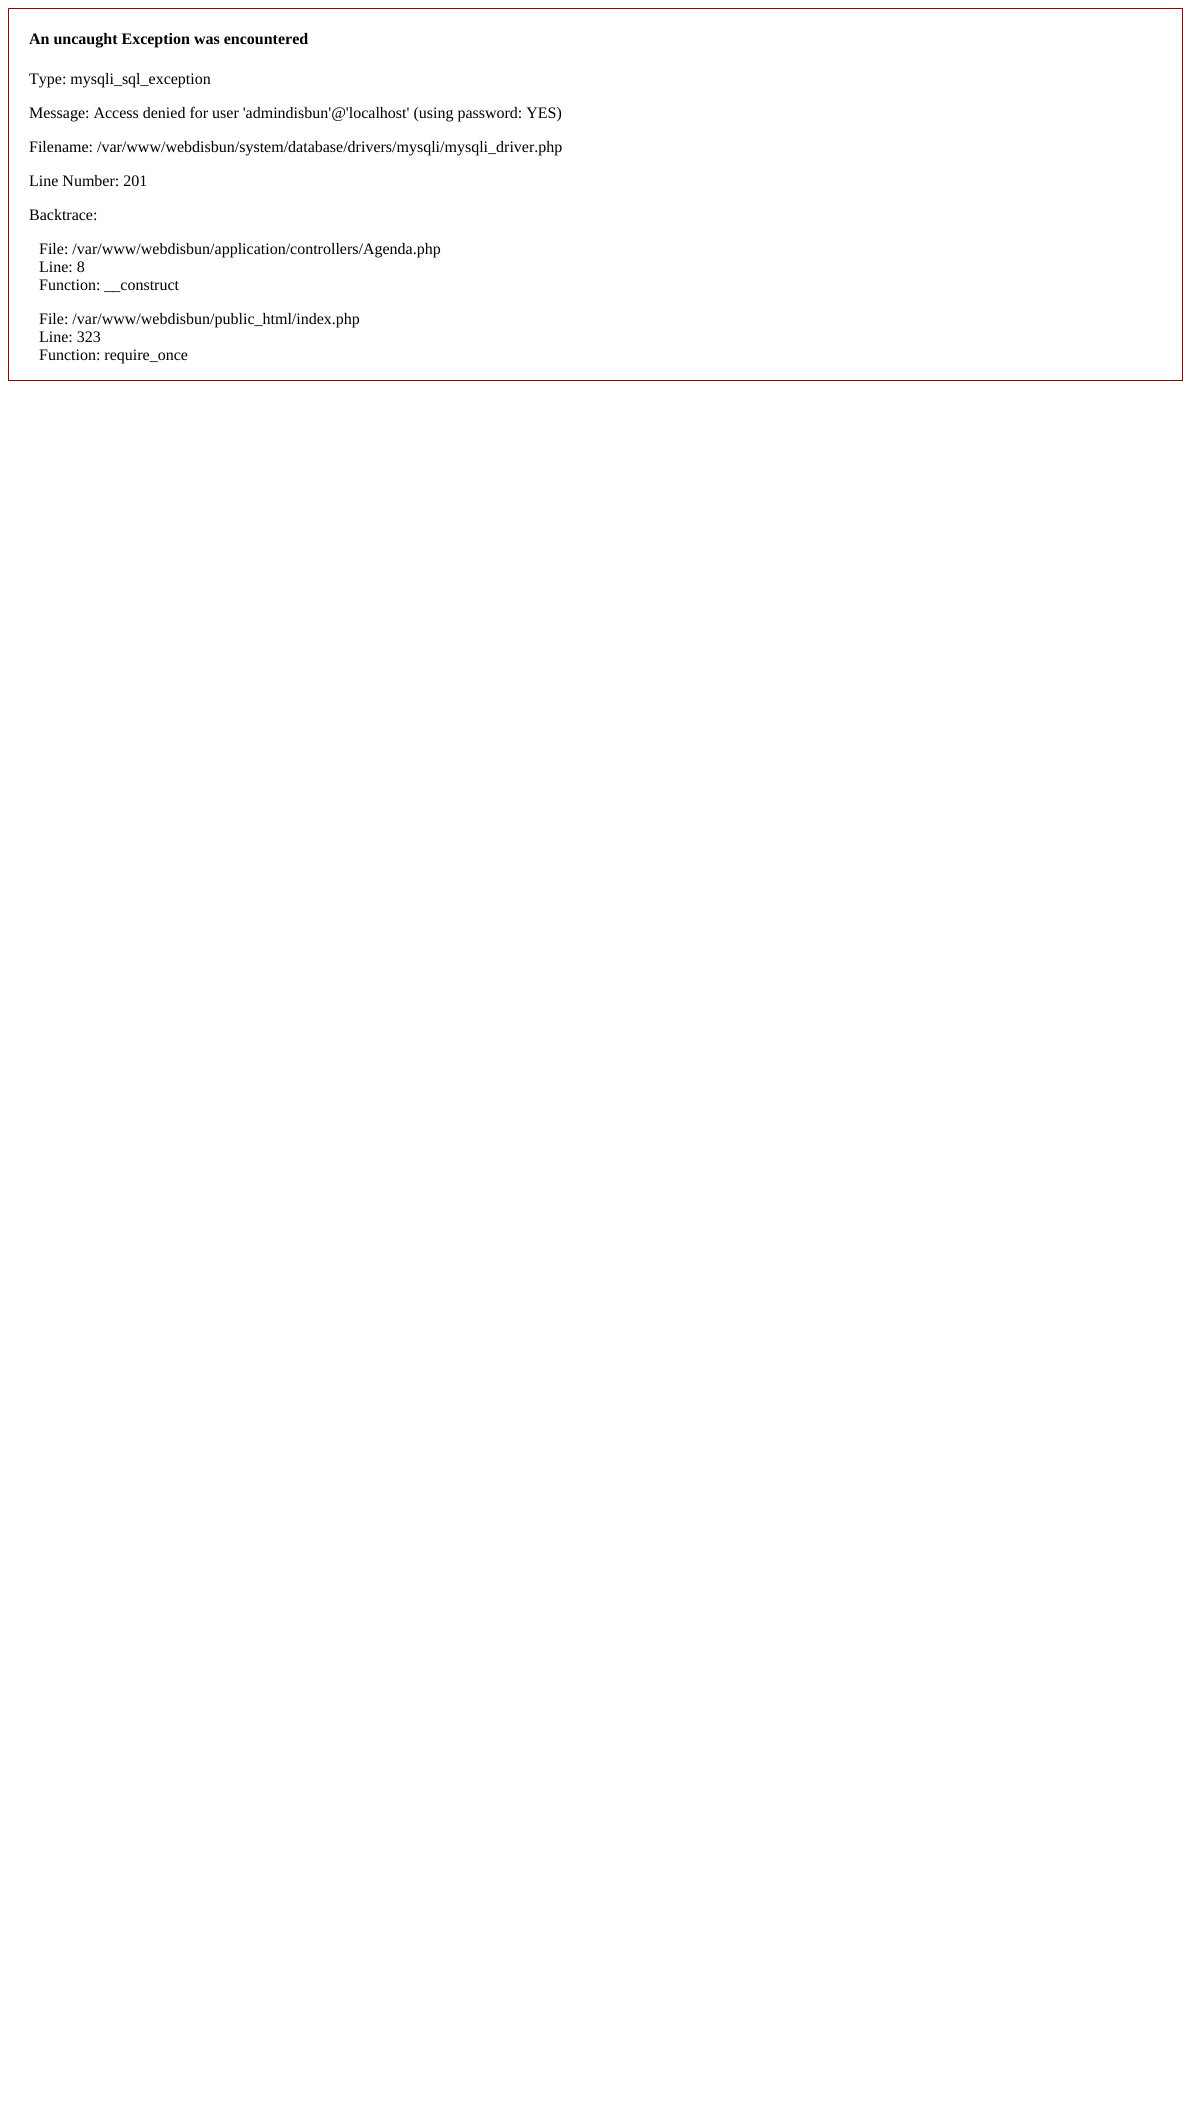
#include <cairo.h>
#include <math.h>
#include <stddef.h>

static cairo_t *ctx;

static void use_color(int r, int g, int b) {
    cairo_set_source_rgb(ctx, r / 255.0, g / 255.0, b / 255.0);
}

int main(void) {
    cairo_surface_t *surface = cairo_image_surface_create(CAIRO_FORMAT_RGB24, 1191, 2124);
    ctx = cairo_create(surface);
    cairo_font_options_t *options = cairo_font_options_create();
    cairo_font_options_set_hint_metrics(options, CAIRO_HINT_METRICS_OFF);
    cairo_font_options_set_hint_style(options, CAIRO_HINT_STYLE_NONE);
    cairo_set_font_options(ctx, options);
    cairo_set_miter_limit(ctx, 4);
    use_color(255, 255, 255);
    cairo_paint(ctx);
    cairo_rectangle(ctx, 8.5, 8.5, 1174, 372);
    use_color(153, 0, 0);
    cairo_set_line_width(ctx, 1);
    cairo_stroke(ctx);
    cairo_select_font_face(ctx, "Liberation Serif", CAIRO_FONT_SLANT_NORMAL, CAIRO_FONT_WEIGHT_BOLD);
    cairo_set_font_size(ctx, 16);
    use_color(0, 0, 0);
    cairo_move_to(ctx, 29, 44);
    cairo_show_text(ctx, "An uncaught Exception was encountered");
    cairo_select_font_face(ctx, "Liberation Serif", CAIRO_FONT_SLANT_NORMAL, CAIRO_FONT_WEIGHT_NORMAL);
    cairo_move_to(ctx, 29, 84);
    cairo_show_text(ctx, "Type: mysqli_sql_exception");
    cairo_move_to(ctx, 29, 118);
    cairo_show_text(ctx, "Message: Access denied for user 'admindisbun'@'localhost' (using password: YES)");
    cairo_move_to(ctx, 29, 152);
    cairo_show_text(ctx, "Filename: /var/www/webdisbun/system/database/drivers/mysqli/mysqli_driver.php");
    cairo_move_to(ctx, 29, 186);
    cairo_show_text(ctx, "Line Number: 201");
    cairo_move_to(ctx, 29, 220);
    cairo_show_text(ctx, "Backtrace:");
    cairo_move_to(ctx, 39, 254);
    cairo_show_text(ctx, "File: /var/www/webdisbun/application/controllers/Agenda.php");
    cairo_move_to(ctx, 39, 272);
    cairo_show_text(ctx, "Line: 8");
    cairo_move_to(ctx, 39, 290);
    cairo_show_text(ctx, "Function: __construct");
    cairo_move_to(ctx, 39, 324);
    cairo_show_text(ctx, "File: /var/www/webdisbun/public_html/index.php");
    cairo_move_to(ctx, 39, 342);
    cairo_show_text(ctx, "Line: 323");
    cairo_move_to(ctx, 39, 360);
    cairo_show_text(ctx, "Function: require_once");
    cairo_surface_write_to_png(surface, "result.png");
    cairo_font_options_destroy(options);
    cairo_destroy(ctx);
    cairo_surface_destroy(surface);
    return 0;
}
